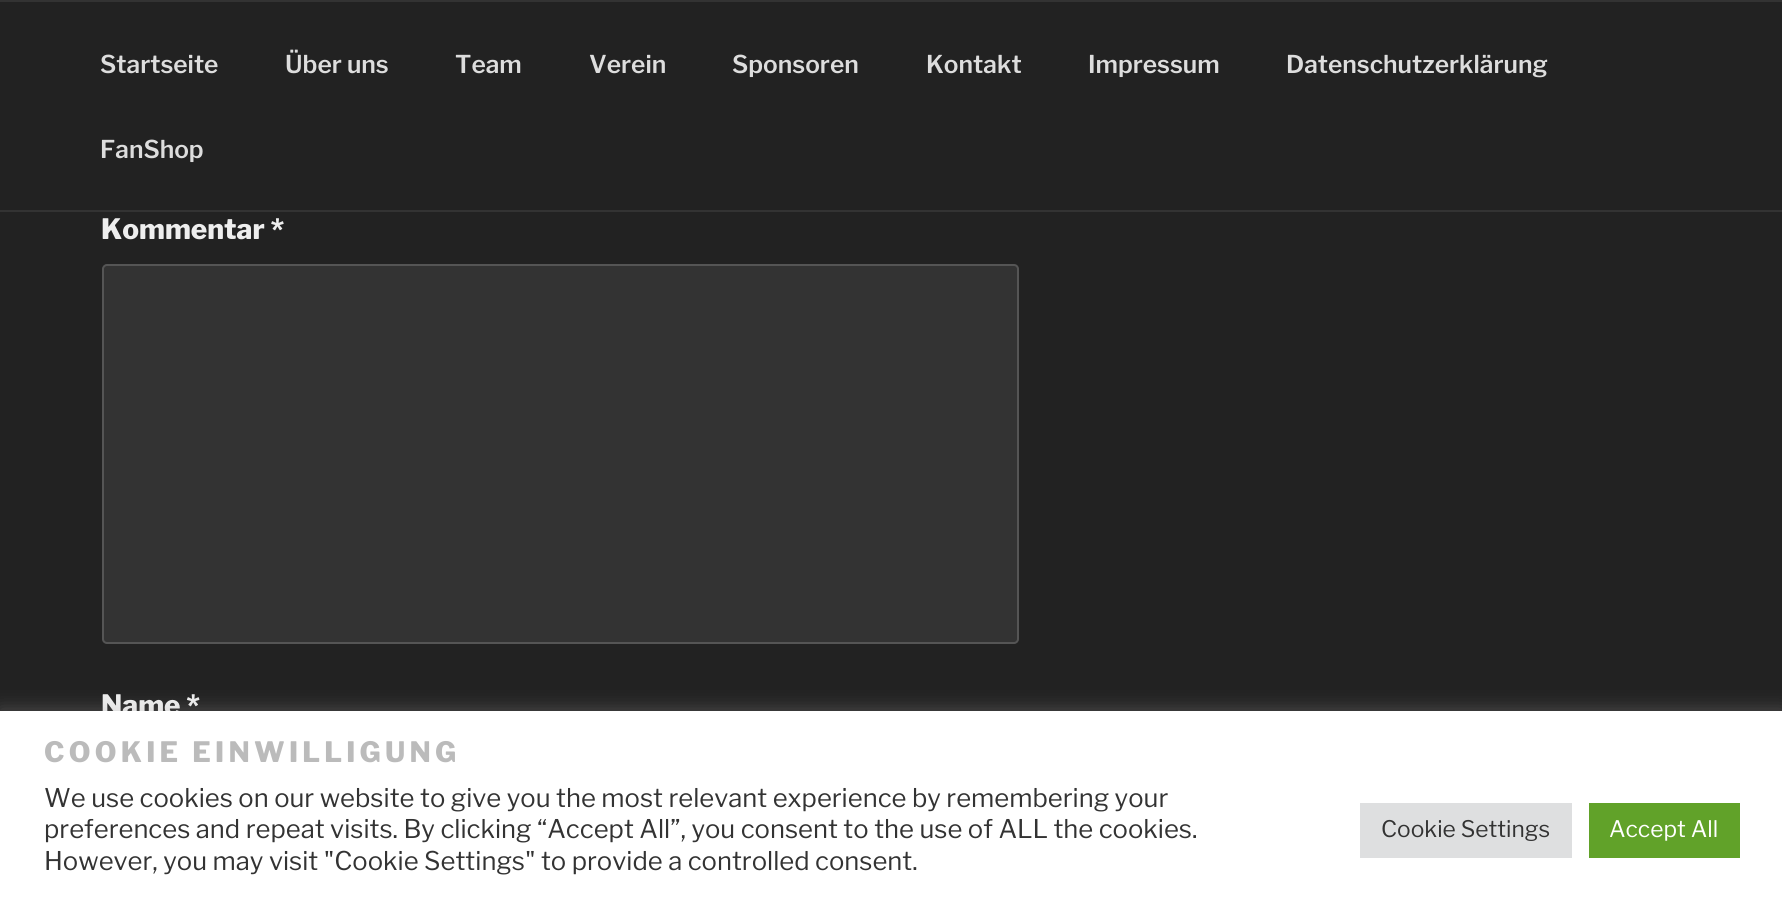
#include <cairo.h>
#include <math.h>
#include <stddef.h>

static cairo_t *ctx;

static void use_color(int r, int g, int b) {
    cairo_set_source_rgb(ctx, r / 255.0, g / 255.0, b / 255.0);
}

static void spaced_text(double x, double y, const char *s, double letter, double word) {
    cairo_move_to(ctx, x, y);
    while (*s) {
        char ch[5] = {0};
        int n = 0;
        do ch[n++] = *s++; while ((*s & 0xC0) == 0x80);
        cairo_show_text(ctx, ch);
        cairo_rel_move_to(ctx, letter + word * (*ch == ' '), 0);
    }
}

static void round_rect(double x, double y, double w, double h, double r) {
    cairo_new_sub_path(ctx);
    cairo_arc(ctx, x + w - r, y + h - r, r, 0, M_PI / 2);
    cairo_arc(ctx, x + r, y + h - r, r, M_PI / 2, M_PI);
    cairo_arc(ctx, x + r, y + r, r, M_PI, 1.5 * M_PI);
    cairo_arc(ctx, x + w - r, y + r, r, 1.5 * M_PI, 2 * M_PI);
    cairo_close_path(ctx);
}

static void shadow(double x, double y, double w, double h, double r, double blur, double alpha) {
    cairo_push_group_with_content(ctx, CAIRO_CONTENT_ALPHA);
    cairo_set_operator(ctx, CAIRO_OPERATOR_SOURCE);
    for (int i = 15; i >= -15 && fmin(w, h) + blur * i / 3 > 0; i -= 2) {
        double e = blur * i / 6;
        cairo_set_source_rgba(ctx, 0, 0, 0, alpha * erfc((i - 1) / 8.5) / 2);
        round_rect(x - e, y - e, w + 2 * e, h + 2 * e, fmax(0, fmin(r + e + blur * .6, fmin(w, h) / 2 + e)));
        cairo_fill(ctx);
    }
    cairo_pattern_t *soft = cairo_pop_group(ctx);
    cairo_mask(ctx, soft);
    cairo_pattern_destroy(soft);
}

int main(void) {
    cairo_surface_t *surface = cairo_image_surface_create(CAIRO_FORMAT_RGB24, 1782, 901);
    ctx = cairo_create(surface);
    cairo_font_options_t *options = cairo_font_options_create();
    cairo_font_options_set_hint_metrics(options, CAIRO_HINT_METRICS_OFF);
    cairo_font_options_set_hint_style(options, CAIRO_HINT_STYLE_NONE);
    cairo_set_font_options(ctx, options);
    cairo_set_miter_limit(ctx, 4);
    use_color(34, 34, 34);
    cairo_paint(ctx);
    use_color(51, 51, 51);
    cairo_rectangle(ctx, 0, 0, 1782, 2);
    cairo_fill(ctx);
    cairo_rectangle(ctx, 0, 210, 1782, 2);
    cairo_fill(ctx);
    cairo_select_font_face(ctx, "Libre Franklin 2 Thin", CAIRO_FONT_SLANT_NORMAL, CAIRO_FONT_WEIGHT_NORMAL);
    cairo_set_font_size(ctx, 24.5);
    use_color(221, 221, 221);
    cairo_move_to(ctx, 100, 73);
    cairo_show_text(ctx, "Startseite");
    cairo_move_to(ctx, 285, 73);
    cairo_show_text(ctx, "Über uns");
    cairo_move_to(ctx, 455, 73);
    cairo_show_text(ctx, "Team");
    cairo_move_to(ctx, 589, 73);
    cairo_show_text(ctx, "Verein");
    cairo_move_to(ctx, 732, 73);
    cairo_show_text(ctx, "Sponsoren");
    cairo_move_to(ctx, 926, 73);
    cairo_show_text(ctx, "Kontakt");
    cairo_move_to(ctx, 1088, 73);
    cairo_show_text(ctx, "Impressum");
    cairo_move_to(ctx, 1286, 73);
    cairo_show_text(ctx, "Datenschutzerklärung");
    cairo_move_to(ctx, 100, 158);
    cairo_show_text(ctx, "FanShop");
    cairo_select_font_face(ctx, "Libre Franklin Thin", CAIRO_FONT_SLANT_NORMAL, CAIRO_FONT_WEIGHT_NORMAL);
    cairo_set_font_size(ctx, 28);
    use_color(238, 238, 238);
    cairo_move_to(ctx, 101, 239);
    cairo_show_text(ctx, "Kommentar *");
    use_color(51, 51, 51);
    round_rect(103, 265, 915, 378, 4);
    cairo_fill_preserve(ctx);
    use_color(85, 85, 85);
    cairo_stroke(ctx);
    use_color(238, 238, 238);
    cairo_move_to(ctx, 101, 715);
    cairo_show_text(ctx, "Name *");
    use_color(172, 171, 171);
    shadow(0, 709, 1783, 191, 0, 9, 0.3);
    use_color(255, 255, 255);
    cairo_rectangle(ctx, 0, 711, 1782, 190);
    cairo_fill(ctx);
    use_color(187, 187, 187);
    spaced_text(44, 762, "COOKIE EINWILLIGUNG", 4.25, 0);
    cairo_select_font_face(ctx, "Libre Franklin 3 Thin", CAIRO_FONT_SLANT_NORMAL, CAIRO_FONT_WEIGHT_NORMAL);
    cairo_set_font_size(ctx, 25.65);
    use_color(51, 51, 51);
    cairo_move_to(ctx, 44, 807);
    cairo_show_text(ctx, "We use cookies on our website to give you the most relevant experience by remembering your");
    cairo_move_to(ctx, 44, 838);
    cairo_show_text(ctx, "preferences and repeat visits. By clicking “Accept All”, you consent to the use of ALL the cookies.");
    cairo_move_to(ctx, 44, 870);
    cairo_show_text(ctx, "However, you may visit \"Cookie Settings\" to provide a controlled consent.");
    use_color(222, 223, 224);
    cairo_rectangle(ctx, 1360, 803, 212, 55);
    cairo_fill(ctx);
    cairo_set_font_size(ctx, 22.75);
    use_color(51, 51, 51);
    cairo_move_to(ctx, 1381, 837);
    cairo_show_text(ctx, "Cookie Settings");
    use_color(97, 162, 41);
    cairo_rectangle(ctx, 1589, 803, 151, 55);
    cairo_fill(ctx);
    use_color(255, 255, 255);
    cairo_move_to(ctx, 1609, 837);
    cairo_show_text(ctx, "Accept All");
    cairo_surface_write_to_png(surface, "result.png");
    cairo_font_options_destroy(options);
    cairo_destroy(ctx);
    cairo_surface_destroy(surface);
    return 0;
}
